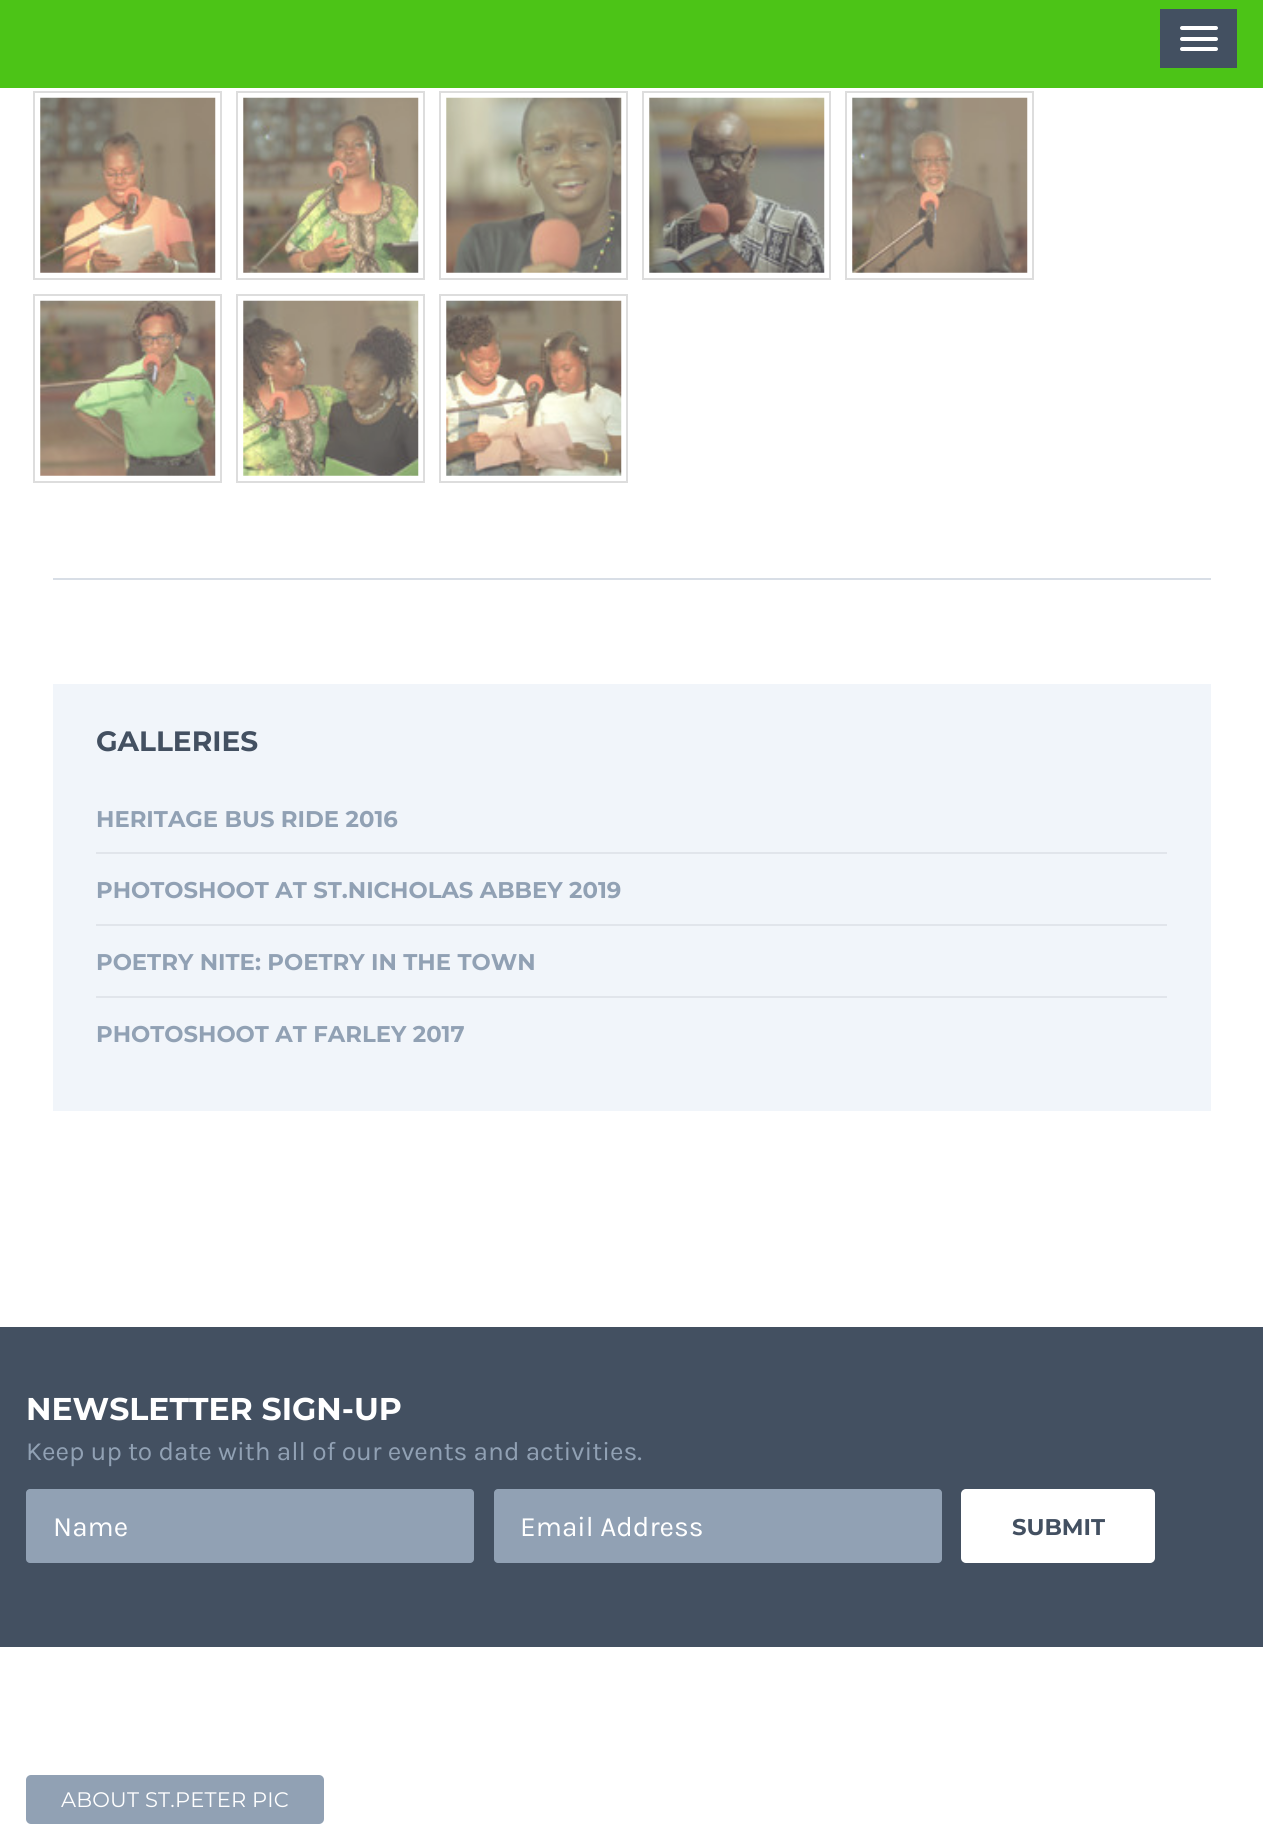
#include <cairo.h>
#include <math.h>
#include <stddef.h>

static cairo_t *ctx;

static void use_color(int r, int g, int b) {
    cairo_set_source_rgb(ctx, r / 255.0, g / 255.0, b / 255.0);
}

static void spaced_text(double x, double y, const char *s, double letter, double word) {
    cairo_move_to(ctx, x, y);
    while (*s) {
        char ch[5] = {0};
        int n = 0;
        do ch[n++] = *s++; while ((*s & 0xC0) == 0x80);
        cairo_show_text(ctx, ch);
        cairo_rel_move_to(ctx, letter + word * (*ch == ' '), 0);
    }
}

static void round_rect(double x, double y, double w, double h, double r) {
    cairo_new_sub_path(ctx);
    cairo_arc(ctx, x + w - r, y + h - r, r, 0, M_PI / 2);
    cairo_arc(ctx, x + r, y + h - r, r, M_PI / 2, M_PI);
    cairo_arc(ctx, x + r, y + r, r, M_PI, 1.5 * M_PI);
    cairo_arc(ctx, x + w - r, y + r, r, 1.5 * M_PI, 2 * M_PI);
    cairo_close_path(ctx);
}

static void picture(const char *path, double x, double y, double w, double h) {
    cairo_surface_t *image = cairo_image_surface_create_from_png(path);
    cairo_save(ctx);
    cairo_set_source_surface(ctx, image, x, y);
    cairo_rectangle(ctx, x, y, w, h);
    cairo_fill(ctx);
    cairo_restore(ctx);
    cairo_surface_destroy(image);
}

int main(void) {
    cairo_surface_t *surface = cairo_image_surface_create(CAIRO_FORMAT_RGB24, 1263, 1844);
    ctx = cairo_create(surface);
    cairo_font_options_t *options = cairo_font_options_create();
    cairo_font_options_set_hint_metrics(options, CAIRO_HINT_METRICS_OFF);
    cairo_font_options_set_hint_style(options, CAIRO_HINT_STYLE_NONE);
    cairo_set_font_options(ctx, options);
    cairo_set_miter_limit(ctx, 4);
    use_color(255, 255, 255);
    cairo_paint(ctx);
    use_color(76, 196, 23);
    cairo_rectangle(ctx, 0, 0, 1263, 88);
    cairo_fill(ctx);
    use_color(67, 80, 97);
    cairo_rectangle(ctx, 1160, 9, 77, 59);
    cairo_fill(ctx);
    use_color(255, 255, 255);
    round_rect(1180, 26, 38, 4, 2);
    cairo_fill(ctx);
    round_rect(1180, 37, 38, 4, 2);
    cairo_fill(ctx);
    round_rect(1180, 47, 38, 4, 2);
    cairo_fill(ctx);
    use_color(216, 222, 230);
    cairo_rectangle(ctx, 53, 578, 1158, 2);
    cairo_fill(ctx);
    cairo_rectangle(ctx, 34, 92, 187, 187);
    use_color(221, 221, 221);
    cairo_stroke(ctx);
    picture("img1.png", 40, 97, 176, 176);
    cairo_rectangle(ctx, 237, 92, 187, 187);
    cairo_stroke(ctx);
    picture("img2.png", 243, 97, 176, 176);
    cairo_rectangle(ctx, 440, 92, 187, 187);
    cairo_stroke(ctx);
    picture("img3.png", 446, 97, 176, 176);
    cairo_rectangle(ctx, 643, 92, 187, 187);
    cairo_stroke(ctx);
    picture("img4.png", 649, 97, 176, 176);
    cairo_rectangle(ctx, 846, 92, 187, 187);
    cairo_stroke(ctx);
    picture("img5.png", 852, 97, 176, 176);
    cairo_rectangle(ctx, 34, 295, 187, 187);
    cairo_stroke(ctx);
    picture("img6.png", 40, 300, 176, 176);
    cairo_rectangle(ctx, 237, 295, 187, 187);
    cairo_stroke(ctx);
    picture("img7.png", 243, 300, 176, 176);
    cairo_rectangle(ctx, 440, 295, 187, 187);
    cairo_stroke(ctx);
    picture("img8.png", 446, 300, 176, 176);
    use_color(241, 245, 250);
    cairo_rectangle(ctx, 53, 684, 1158, 427);
    cairo_fill(ctx);
    cairo_select_font_face(ctx, "Montserrat", CAIRO_FONT_SLANT_NORMAL, CAIRO_FONT_WEIGHT_BOLD);
    cairo_set_font_size(ctx, 28);
    use_color(67, 80, 97);
    cairo_move_to(ctx, 96, 751);
    cairo_show_text(ctx, "GALLERIES");
    cairo_set_font_size(ctx, 22.75);
    use_color(145, 161, 180);
    cairo_move_to(ctx, 96, 827);
    cairo_show_text(ctx, "HERITAGE BUS RIDE 2016");
    use_color(225, 229, 235);
    cairo_rectangle(ctx, 96, 852, 1071, 2);
    cairo_fill(ctx);
    use_color(145, 161, 180);
    cairo_move_to(ctx, 96, 898);
    cairo_show_text(ctx, "PHOTOSHOOT AT ST.NICHOLAS ABBEY 2019");
    use_color(225, 229, 235);
    cairo_rectangle(ctx, 96, 924, 1071, 2);
    cairo_fill(ctx);
    use_color(145, 161, 180);
    cairo_move_to(ctx, 96, 970);
    cairo_show_text(ctx, "POETRY NITE: POETRY IN THE TOWN");
    use_color(225, 229, 235);
    cairo_rectangle(ctx, 96, 996, 1071, 2);
    cairo_fill(ctx);
    use_color(145, 161, 180);
    cairo_move_to(ctx, 96, 1042);
    cairo_show_text(ctx, "PHOTOSHOOT AT FARLEY 2017");
    use_color(67, 80, 97);
    cairo_rectangle(ctx, 0, 1327, 1263, 320);
    cairo_fill(ctx);
    cairo_set_font_size(ctx, 31.5);
    use_color(255, 255, 255);
    cairo_move_to(ctx, 26, 1420);
    cairo_show_text(ctx, "NEWSLETTER SIGN-UP");
    cairo_select_font_face(ctx, "Karla", CAIRO_FONT_SLANT_NORMAL, CAIRO_FONT_WEIGHT_NORMAL);
    cairo_set_font_size(ctx, 26.25);
    use_color(145, 161, 180);
    cairo_move_to(ctx, 26, 1460);
    cairo_show_text(ctx, "Keep up to date with all of our events and activities.");
    round_rect(26, 1489, 448, 74, 4);
    cairo_fill(ctx);
    cairo_set_font_size(ctx, 28);
    use_color(255, 255, 255);
    cairo_move_to(ctx, 53, 1536);
    cairo_show_text(ctx, "Name");
    use_color(145, 161, 180);
    round_rect(494, 1489, 448, 74, 4);
    cairo_fill(ctx);
    use_color(255, 255, 255);
    cairo_move_to(ctx, 520, 1536);
    cairo_show_text(ctx, "Email Address");
    round_rect(962, 1490, 192, 72, 4);
    cairo_fill_preserve(ctx);
    cairo_stroke(ctx);
    cairo_select_font_face(ctx, "Montserrat", CAIRO_FONT_SLANT_NORMAL, CAIRO_FONT_WEIGHT_BOLD);
    cairo_set_font_size(ctx, 22.75);
    use_color(67, 80, 97);
    cairo_move_to(ctx, 1012, 1535);
    cairo_show_text(ctx, "SUBMIT");
    use_color(145, 161, 180);
    round_rect(26, 1775, 298, 49, 5);
    cairo_fill(ctx);
    cairo_select_font_face(ctx, "Montserrat", CAIRO_FONT_SLANT_NORMAL, CAIRO_FONT_WEIGHT_NORMAL);
    cairo_set_font_size(ctx, 21);
    use_color(255, 255, 255);
    spaced_text(61, 1807, "ABOUT ST.PETER PIC", 0.2, 0);
    cairo_surface_write_to_png(surface, "result.png");
    cairo_font_options_destroy(options);
    cairo_destroy(ctx);
    cairo_surface_destroy(surface);
    return 0;
}
